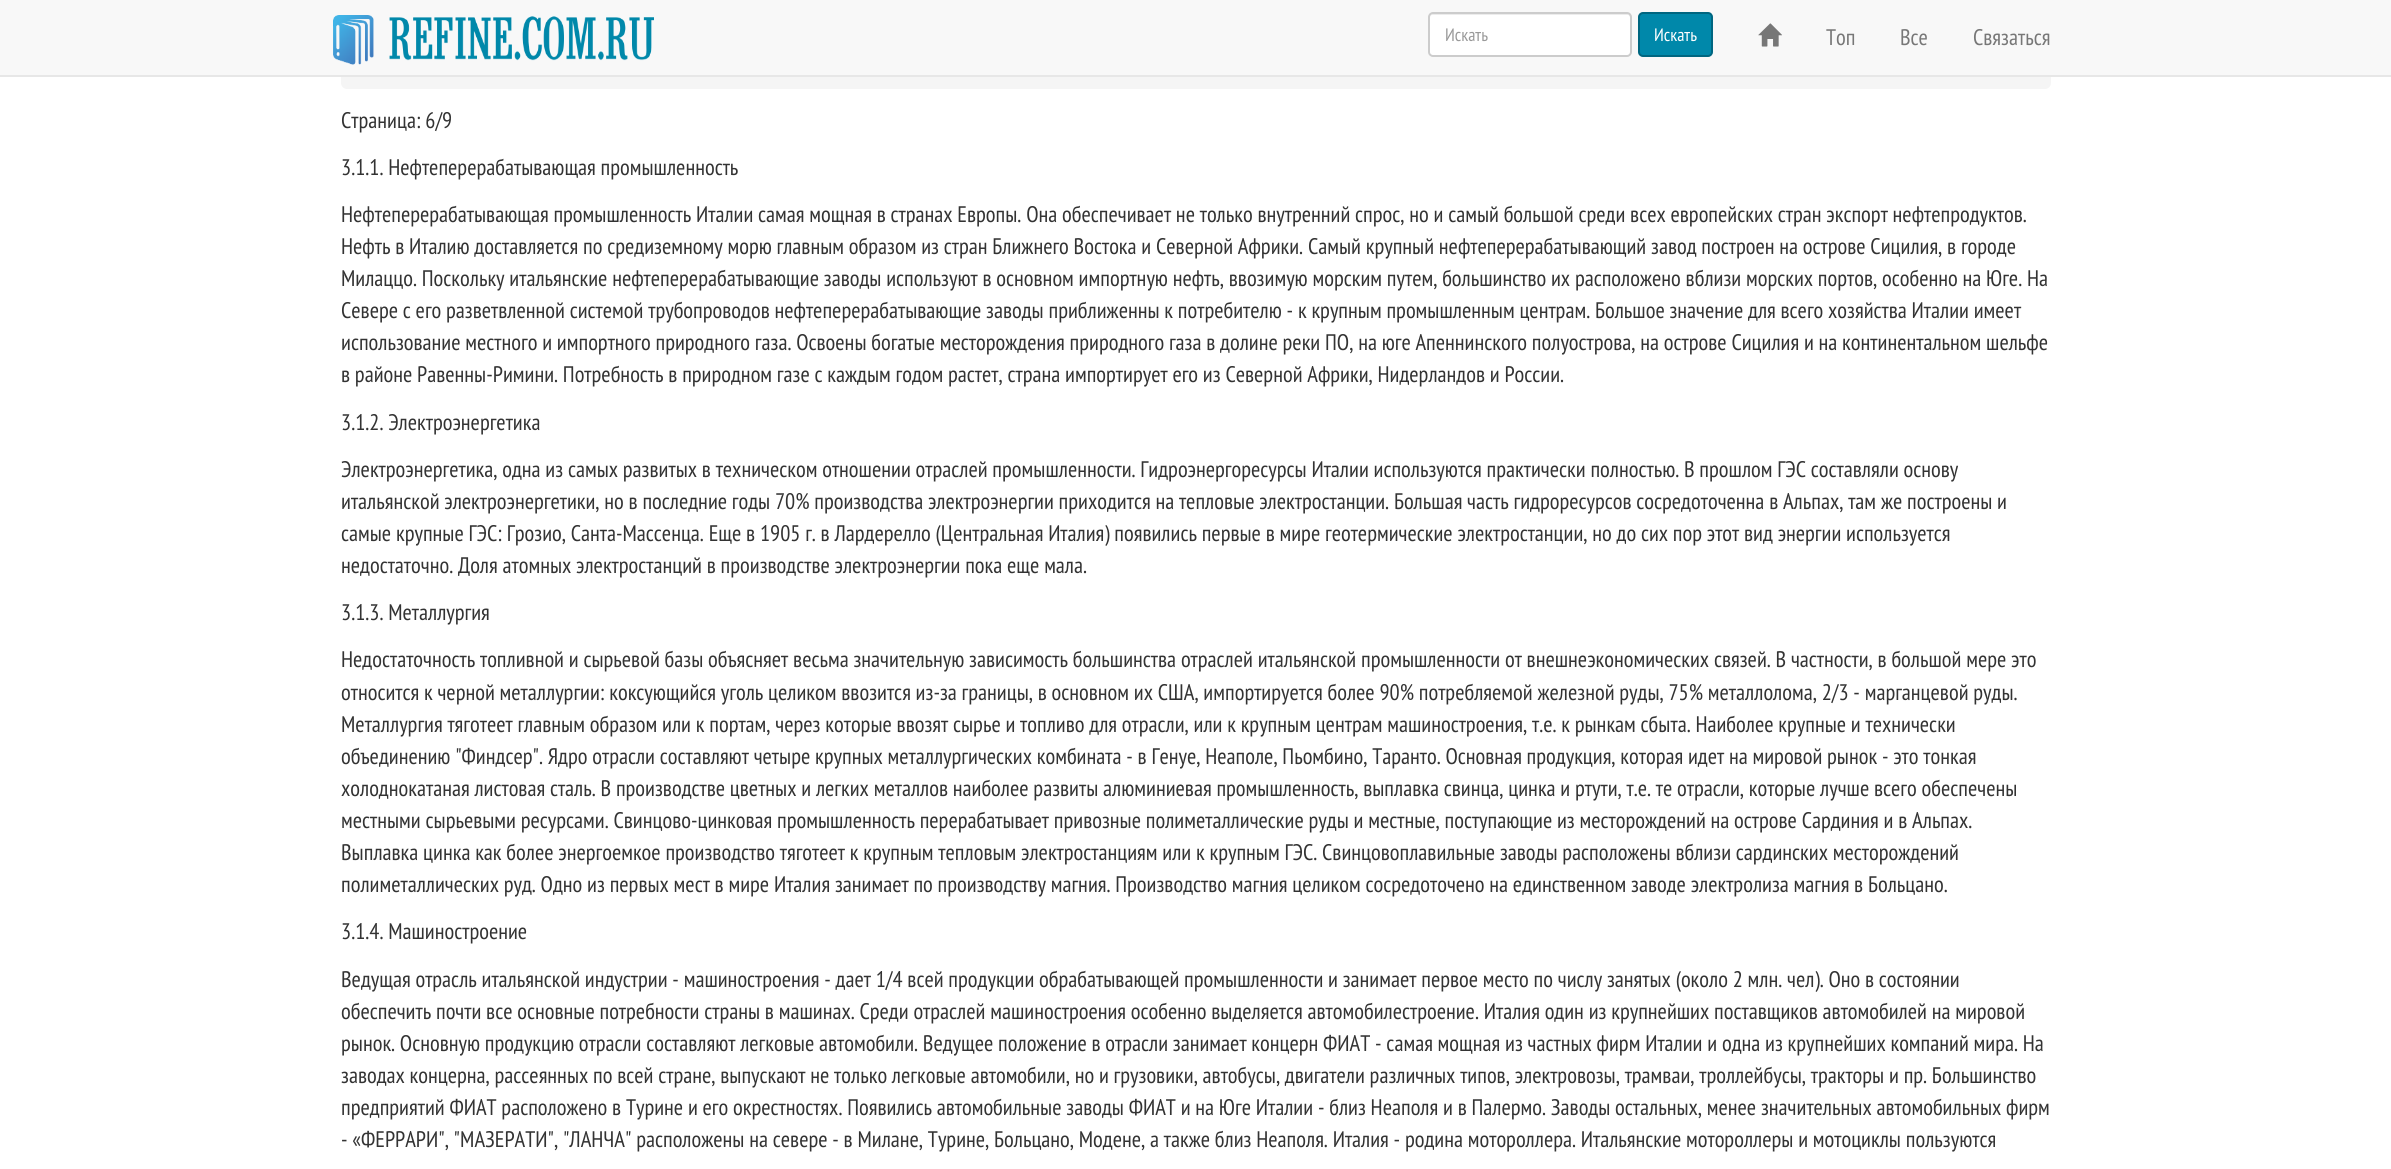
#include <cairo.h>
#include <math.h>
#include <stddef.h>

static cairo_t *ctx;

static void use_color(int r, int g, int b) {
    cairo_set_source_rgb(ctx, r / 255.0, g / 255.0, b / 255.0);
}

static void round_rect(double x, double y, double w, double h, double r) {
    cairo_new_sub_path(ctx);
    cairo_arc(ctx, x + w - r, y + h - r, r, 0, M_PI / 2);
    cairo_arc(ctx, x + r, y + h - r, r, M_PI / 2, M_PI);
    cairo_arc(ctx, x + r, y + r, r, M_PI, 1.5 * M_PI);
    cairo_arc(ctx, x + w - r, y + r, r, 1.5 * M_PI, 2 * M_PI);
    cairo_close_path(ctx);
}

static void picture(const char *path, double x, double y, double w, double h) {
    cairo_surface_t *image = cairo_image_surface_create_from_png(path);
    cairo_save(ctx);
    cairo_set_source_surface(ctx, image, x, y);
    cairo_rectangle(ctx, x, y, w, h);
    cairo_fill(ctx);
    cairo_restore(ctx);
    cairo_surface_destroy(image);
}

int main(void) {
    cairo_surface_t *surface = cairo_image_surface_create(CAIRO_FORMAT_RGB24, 2391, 1169);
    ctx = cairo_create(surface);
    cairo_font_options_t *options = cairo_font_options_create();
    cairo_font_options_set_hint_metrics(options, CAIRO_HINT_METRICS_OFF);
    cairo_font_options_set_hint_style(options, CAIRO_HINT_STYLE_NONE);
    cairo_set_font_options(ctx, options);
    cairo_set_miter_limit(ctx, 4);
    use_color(255, 255, 255);
    cairo_paint(ctx);
    use_color(245, 245, 245);
    round_rect(341, 33, 1710, 56, 6);
    cairo_fill(ctx);
    use_color(248, 248, 248);
    cairo_rectangle(ctx, 0, 0, 2391, 75);
    cairo_fill(ctx);
    use_color(231, 231, 231);
    cairo_rectangle(ctx, 0, 75, 2391, 2);
    cairo_fill(ctx);
    picture("img1.png", 333, 15, 321, 50);
    use_color(255, 255, 255);
    round_rect(1428, 12, 204, 45, 5);
    cairo_fill(ctx);
    use_color(236, 236, 236);
    cairo_new_path(ctx);
    cairo_move_to(ctx, 1432, 15);
    cairo_line_to(ctx, 1628, 15);
    cairo_curve_to(ctx, 1629, 15, 1630, 16, 1630, 18);
    cairo_line_to(ctx, 1630, 55);
    cairo_curve_to(ctx, 1631, 55, 1631, 54, 1631, 53);
    cairo_line_to(ctx, 1631, 17);
    cairo_curve_to(ctx, 1631, 15, 1630, 14, 1628, 14);
    cairo_line_to(ctx, 1433, 14);
    cairo_curve_to(ctx, 1431, 14, 1430, 15, 1430, 17);
    cairo_line_to(ctx, 1430, 18);
    cairo_curve_to(ctx, 1430, 16, 1431, 15, 1432, 15);
    cairo_close_path(ctx);
    cairo_fill(ctx);
    round_rect(1429, 13, 202, 43, 4);
    use_color(204, 204, 204);
    cairo_stroke(ctx);
    cairo_select_font_face(ctx, "PT Sans Narrow", CAIRO_FONT_SLANT_NORMAL, CAIRO_FONT_WEIGHT_NORMAL);
    cairo_set_font_size(ctx, 18);
    use_color(153, 153, 153);
    cairo_move_to(ctx, 1445, 41);
    cairo_show_text(ctx, "Искать");
    use_color(0, 136, 170);
    round_rect(1639, 13, 73, 43, 4);
    cairo_fill_preserve(ctx);
    use_color(0, 102, 128);
    cairo_stroke(ctx);
    use_color(255, 255, 255);
    cairo_move_to(ctx, 1654, 41);
    cairo_show_text(ctx, "Искать");
    picture("img2.png", 1758, 23, 24, 24);
    cairo_set_font_size(ctx, 22.5);
    use_color(119, 119, 119);
    cairo_move_to(ctx, 1826, 45);
    cairo_show_text(ctx, "Топ");
    cairo_move_to(ctx, 1900, 45);
    cairo_show_text(ctx, "Все");
    cairo_move_to(ctx, 1973, 45);
    cairo_show_text(ctx, "Связаться");
    use_color(51, 51, 51);
    cairo_move_to(ctx, 341, 128);
    cairo_show_text(ctx, "Страница: 6/9");
    cairo_move_to(ctx, 341, 175);
    cairo_show_text(ctx, "3.1.1. Нефтеперерабатывающая промышленность");
    cairo_move_to(ctx, 341, 222);
    cairo_show_text(ctx, "Нефтеперерабатывающая промышленность Италии самая мощная в странах Европы. Она обеспечивает не только внутренний спрос, но и самый большой среди всех европейских стран экспорт нефтепродуктов.");
    cairo_move_to(ctx, 341, 254);
    cairo_show_text(ctx, "Нефть в Италию доставляется по средиземному морю главным образом из стран Ближнего Востока и Северной Африки. Самый крупный нефтеперерабатывающий завод построен на острове Сицилия, в городе");
    cairo_move_to(ctx, 341, 286);
    cairo_show_text(ctx, "Милаццо. Поскольку итальянские нефтеперерабатывающие заводы используют в основном импортную нефть, ввозимую морским путем, большинство их расположено вблизи морских портов, особенно на Юге. На");
    cairo_move_to(ctx, 341, 318);
    cairo_show_text(ctx, "Севере с его разветвленной системой трубопроводов нефтеперерабатывающие заводы приближенны к потребителю - к крупным промышленным центрам. Большое значение для всего хозяйства Италии имеет");
    cairo_move_to(ctx, 341, 350);
    cairo_show_text(ctx, "использование местного и импортного природного газа. Освоены богатые месторождения природного газа в долине реки ПО, на юге Апеннинского полуострова, на острове Сицилия и на континентальном шельфе");
    cairo_move_to(ctx, 341, 382);
    cairo_show_text(ctx, "в районе Равенны-Римини. Потребность в природном газе с каждым годом растет, страна импортирует его из Северной Африки, Нидерландов и России.");
    cairo_move_to(ctx, 341, 430);
    cairo_show_text(ctx, "3.1.2. Электроэнергетика");
    cairo_move_to(ctx, 341, 477);
    cairo_show_text(ctx, "Электроэнергетика, одна из самых развитых в техническом отношении отраслей промышленности. Гидроэнергоресурсы Италии используются практически полностью. В прошлом ГЭС составляли основу");
    cairo_move_to(ctx, 341, 509);
    cairo_show_text(ctx, "итальянской электроэнергетики, но в последние годы 70% производства электроэнергии приходится на тепловые электростанции. Большая часть гидроресурсов сосредоточенна в Альпах, там же построены и");
    cairo_move_to(ctx, 341, 541);
    cairo_show_text(ctx, "самые крупные ГЭС: Грозио, Санта-Массенца. Еще в 1905 г. в Лардерелло (Центральная Италия) появились первые в мире геотермические электростанции, но до сих пор этот вид энергии используется");
    cairo_move_to(ctx, 341, 573);
    cairo_show_text(ctx, "недостаточно. Доля атомных электростанций в производстве электроэнергии пока еще мала.");
    cairo_move_to(ctx, 341, 620);
    cairo_show_text(ctx, "3.1.3. Металлургия");
    cairo_move_to(ctx, 341, 667);
    cairo_show_text(ctx, "Недостаточность топливной и сырьевой базы объясняет весьма значительную зависимость большинства отраслей итальянской промышленности от внешнеэкономических связей. В частности, в большой мере это");
    cairo_move_to(ctx, 341, 700);
    cairo_show_text(ctx, "относится к черной металлургии: коксующийся уголь целиком ввозится из-за границы, в основном их США, импортируется более 90% потребляемой железной руды, 75% металлолома, 2/3 - марганцевой руды.");
    cairo_move_to(ctx, 341, 732);
    cairo_show_text(ctx, "Металлургия тяготеет главным образом или к портам, через которые ввозят сырье и топливо для отрасли, или к крупным центрам машиностроения, т.е. к рынкам сбыта. Наиболее крупные и технически");
    cairo_move_to(ctx, 341, 764);
    cairo_show_text(ctx, "объединению \"Финдсер\". Ядро отрасли составляют четыре крупных металлургических комбината - в Генуе, Неаполе, Пьомбино, Таранто. Основная продукция, которая идет на мировой рынок - это тонкая");
    cairo_move_to(ctx, 341, 796);
    cairo_show_text(ctx, "холоднокатаная листовая сталь. В производстве цветных и легких металлов наиболее развиты алюминиевая промышленность, выплавка свинца, цинка и ртути, т.е. те отрасли, которые лучше всего обеспечены");
    cairo_move_to(ctx, 341, 828);
    cairo_show_text(ctx, "местными сырьевыми ресурсами. Свинцово-цинковая промышленность перерабатывает привозные полиметаллические руды и местные, поступающие из месторождений на острове Сардиния и в Альпах.");
    cairo_move_to(ctx, 341, 860);
    cairo_show_text(ctx, "Выплавка цинка как более энергоемкое производство тяготеет к крупным тепловым электростанциям или к крупным ГЭС. Свинцовоплавильные заводы расположены вблизи сардинских месторождений");
    cairo_move_to(ctx, 341, 892);
    cairo_show_text(ctx, "полиметаллических руд. Одно из первых мест в мире Италия занимает по производству магния. Производство магния целиком сосредоточено на единственном заводе электролиза магния в Больцано.");
    cairo_move_to(ctx, 341, 939);
    cairo_show_text(ctx, "3.1.4. Машиностроение");
    cairo_move_to(ctx, 341, 987);
    cairo_show_text(ctx, "Ведущая отрасль итальянской индустрии - машиностроения - дает 1/4 всей продукции обрабатывающей промышленности и занимает первое место по числу занятых (около 2 млн. чел). Оно в состоянии");
    cairo_move_to(ctx, 341, 1019);
    cairo_show_text(ctx, "обеспечить почти все основные потребности страны в машинах. Среди отраслей машиностроения особенно выделяется автомобилестроение. Италия один из крупнейших поставщиков автомобилей на мировой");
    cairo_move_to(ctx, 341, 1051);
    cairo_show_text(ctx, "рынок. Основную продукцию отрасли составляют легковые автомобили. Ведущее положение в отрасли занимает концерн ФИАТ - самая мощная из частных фирм Италии и одна из крупнейших компаний мира. На");
    cairo_move_to(ctx, 341, 1083);
    cairo_show_text(ctx, "заводах концерна, рассеянных по всей стране, выпускают не только легковые автомобили, но и грузовики, автобусы, двигатели различных типов, электровозы, трамваи, троллейбусы, тракторы и пр. Большинство");
    cairo_move_to(ctx, 341, 1115);
    cairo_show_text(ctx, "предприятий ФИАТ расположено в Турине и его окрестностях. Появились автомобильные заводы ФИАТ и на Юге Италии - близ Неаполя и в Палермо. Заводы остальных, менее значительных автомобильных фирм");
    cairo_move_to(ctx, 341, 1147);
    cairo_show_text(ctx, "- «ФЕРРАРИ\", \"МАЗЕРАТИ\", \"ЛАНЧА\" расположены на севере - в Милане, Турине, Больцано, Модене, а также близ Неаполя. Италия - родина мотороллера. Итальянские мотороллеры и мотоциклы пользуются");
    cairo_surface_write_to_png(surface, "result.png");
    cairo_font_options_destroy(options);
    cairo_destroy(ctx);
    cairo_surface_destroy(surface);
    return 0;
}
